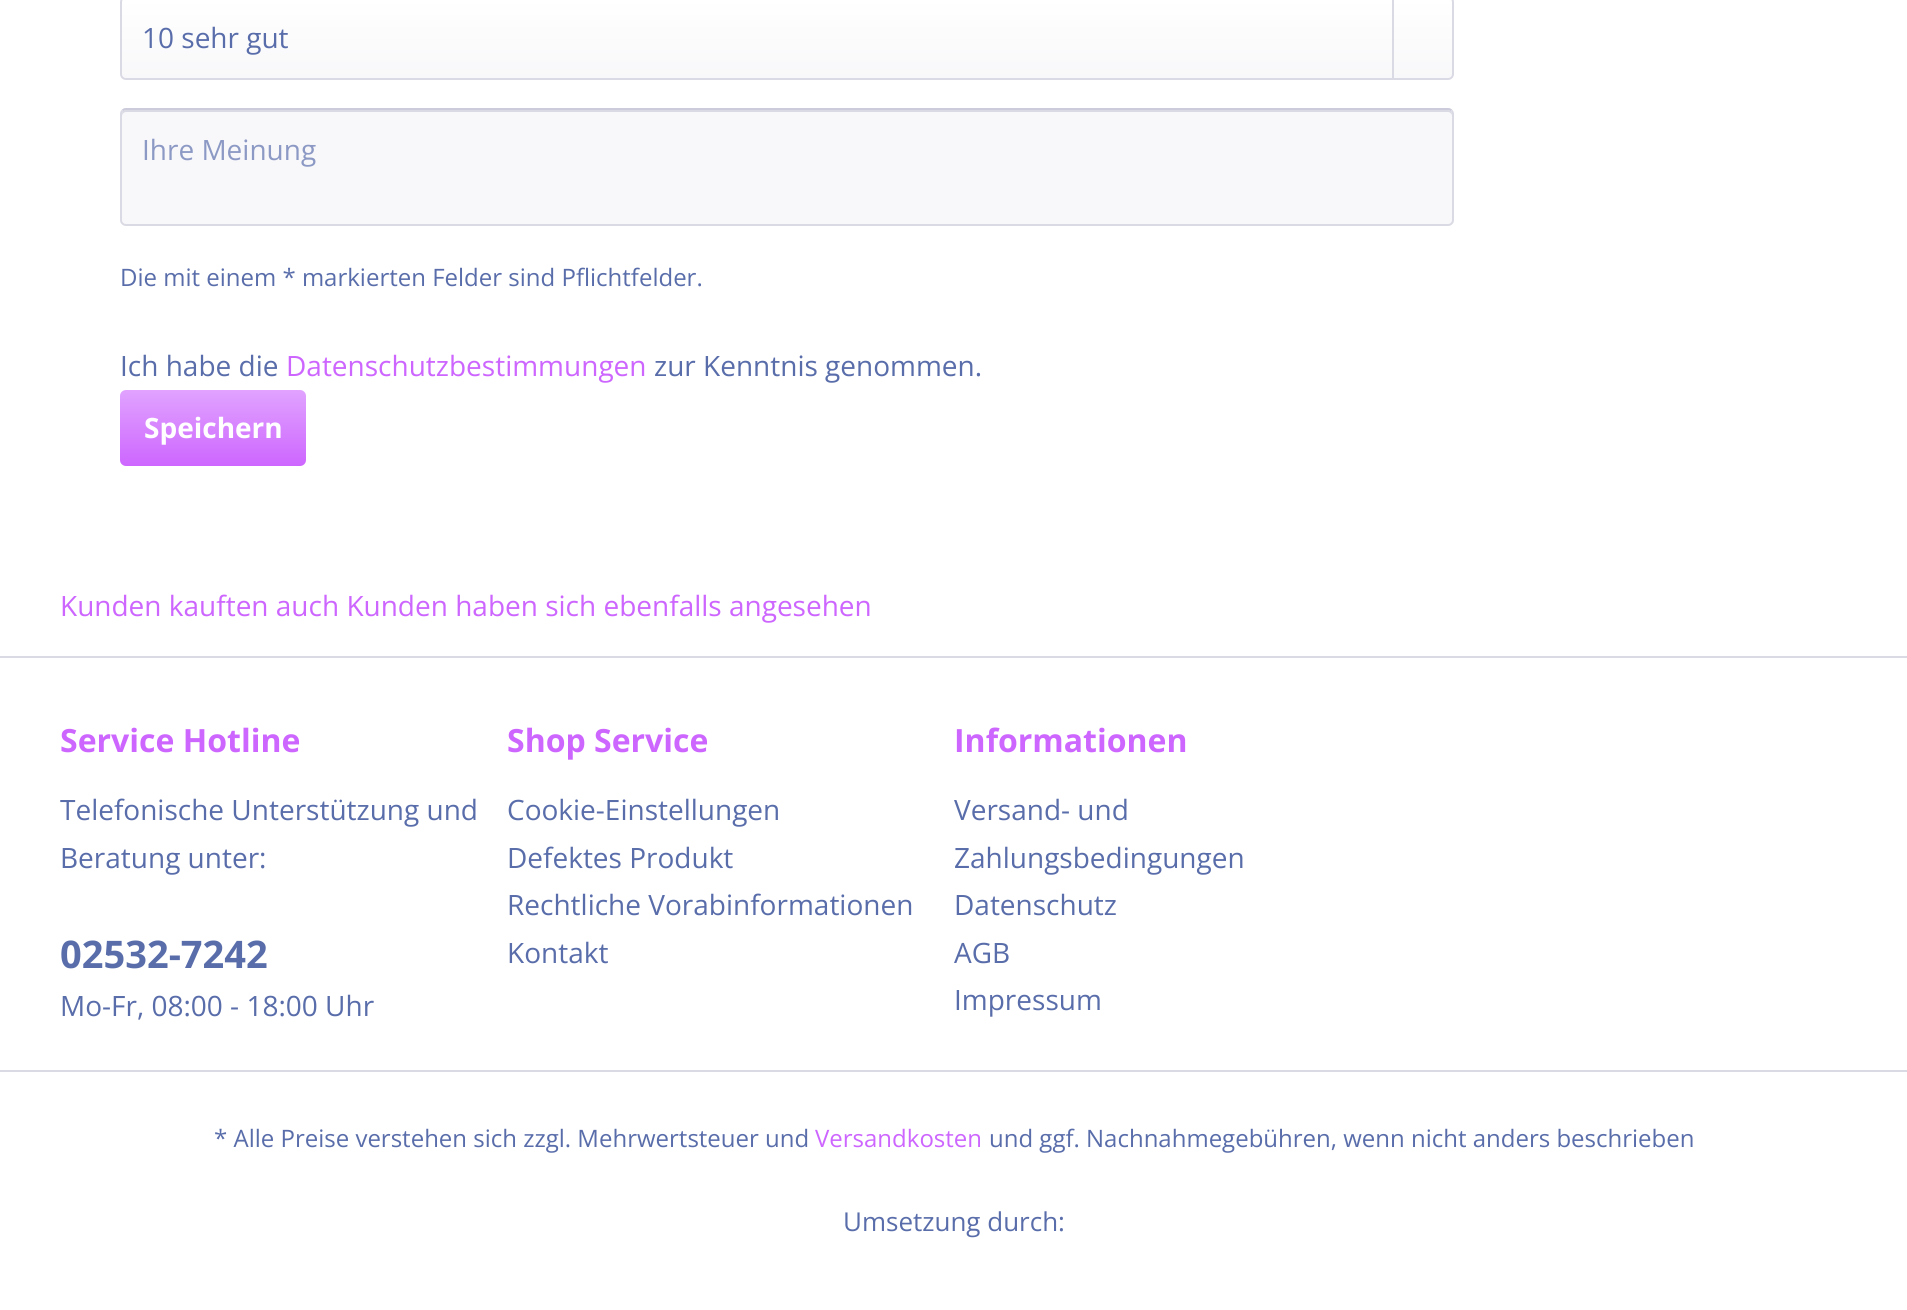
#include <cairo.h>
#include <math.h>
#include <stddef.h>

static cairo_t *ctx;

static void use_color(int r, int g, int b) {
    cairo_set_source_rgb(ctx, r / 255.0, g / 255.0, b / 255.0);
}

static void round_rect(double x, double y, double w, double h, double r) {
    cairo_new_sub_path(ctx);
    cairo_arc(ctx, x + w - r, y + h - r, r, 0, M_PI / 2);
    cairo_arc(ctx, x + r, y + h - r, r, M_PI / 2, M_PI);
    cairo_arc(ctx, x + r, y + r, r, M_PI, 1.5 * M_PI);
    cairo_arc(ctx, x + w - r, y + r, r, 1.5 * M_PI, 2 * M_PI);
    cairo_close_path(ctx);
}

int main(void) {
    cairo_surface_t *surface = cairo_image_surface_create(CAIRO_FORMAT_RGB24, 1907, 1310);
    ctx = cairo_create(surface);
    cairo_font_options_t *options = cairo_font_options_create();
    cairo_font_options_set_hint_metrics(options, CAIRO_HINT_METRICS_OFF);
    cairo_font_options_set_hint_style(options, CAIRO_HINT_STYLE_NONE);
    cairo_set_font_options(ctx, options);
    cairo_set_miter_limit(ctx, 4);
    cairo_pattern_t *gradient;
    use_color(255, 255, 255);
    cairo_paint(ctx);
    gradient = cairo_pattern_create_linear(787, -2, 787, 78);
    cairo_pattern_add_color_stop_rgba(gradient, 0, 1, 1, 1, 1);
    cairo_pattern_add_color_stop_rgba(gradient, 1, 0.973, 0.973, 0.98, 1);
    cairo_set_source(ctx, gradient);
    cairo_pattern_destroy(gradient);
    round_rect(122, -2, 1330, 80, 4);
    cairo_fill(ctx);
    round_rect(121, -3, 1332, 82, 5);
    use_color(218, 218, 229);
    cairo_stroke(ctx);
    cairo_select_font_face(ctx, "Open Sans", CAIRO_FONT_SLANT_NORMAL, CAIRO_FONT_WEIGHT_NORMAL);
    cairo_set_font_size(ctx, 28);
    use_color(89, 109, 170);
    cairo_move_to(ctx, 142, 48);
    cairo_show_text(ctx, "10 sehr gut");
    use_color(218, 218, 229);
    cairo_rectangle(ctx, 1392, 0, 2, 78);
    cairo_fill(ctx);
    use_color(248, 248, 250);
    round_rect(120, 108, 1334, 118, 6);
    cairo_fill(ctx);
    use_color(218, 218, 229);
    cairo_new_path(ctx);
    cairo_move_to(ctx, 126, 112);
    cairo_line_to(ctx, 1448, 112);
    cairo_curve_to(ctx, 1450, 112, 1452, 114, 1452, 116);
    cairo_curve_to(ctx, 1452, 113, 1452, 110, 1448, 110);
    cairo_line_to(ctx, 126, 110);
    cairo_curve_to(ctx, 122, 110, 122, 113, 122, 116);
    cairo_curve_to(ctx, 122, 114, 124, 112, 126, 112);
    cairo_close_path(ctx);
    cairo_fill(ctx);
    cairo_new_path(ctx);
    cairo_move_to(ctx, 122.5, 110.5);
    cairo_curve_to(ctx, 123.5, 109.5, 124.5, 109, 126, 109);
    cairo_line_to(ctx, 1448, 109);
    cairo_curve_to(ctx, 1449.5, 109, 1450.5, 109.5, 1451.5, 110.5);
    use_color(203, 203, 219);
    cairo_stroke(ctx);
    cairo_new_path(ctx);
    cairo_move_to(ctx, 1451.5, 110.5);
    cairo_curve_to(ctx, 1452.5, 111.5, 1453, 112.5, 1453, 114);
    cairo_line_to(ctx, 1453, 220);
    cairo_curve_to(ctx, 1453, 221.5, 1452.5, 222.5, 1451.5, 223.5);
    cairo_curve_to(ctx, 1450.5, 224.5, 1449.5, 225, 1448, 225);
    cairo_line_to(ctx, 126, 225);
    cairo_curve_to(ctx, 124.5, 225, 123.5, 224.5, 122.5, 223.5);
    cairo_curve_to(ctx, 121.5, 222.5, 121, 221.5, 121, 220);
    cairo_line_to(ctx, 121, 114);
    cairo_curve_to(ctx, 121, 112.5, 121.5, 111.5, 122.5, 110.5);
    use_color(218, 218, 229);
    cairo_stroke(ctx);
    use_color(140, 153, 196);
    cairo_move_to(ctx, 142, 160);
    cairo_show_text(ctx, "Ihre Meinung");
    cairo_set_font_size(ctx, 24);
    use_color(89, 109, 170);
    cairo_move_to(ctx, 120, 286);
    cairo_show_text(ctx, "Die mit einem * markierten Felder sind Pflichtfelder.");
    cairo_set_font_size(ctx, 28);
    cairo_move_to(ctx, 120, 376);
    cairo_show_text(ctx, "Ich habe die");
    use_color(205, 102, 255);
    cairo_move_to(ctx, 286, 376);
    cairo_show_text(ctx, "Datenschutzbestimmungen");
    use_color(89, 109, 170);
    cairo_move_to(ctx, 654, 376);
    cairo_show_text(ctx, "zur Kenntnis genommen.");
    gradient = cairo_pattern_create_linear(213, 390, 213, 466);
    cairo_pattern_add_color_stop_rgba(gradient, 0, 0.882, 0.639, 1, 1);
    cairo_pattern_add_color_stop_rgba(gradient, 1, 0.804, 0.4, 1, 1);
    cairo_set_source(ctx, gradient);
    cairo_pattern_destroy(gradient);
    round_rect(120, 390, 186, 76, 6);
    cairo_fill(ctx);
    cairo_select_font_face(ctx, "Open Sans", CAIRO_FONT_SLANT_NORMAL, CAIRO_FONT_WEIGHT_BOLD);
    use_color(255, 255, 255);
    cairo_move_to(ctx, 144, 438);
    cairo_show_text(ctx, "Speichern");
    cairo_select_font_face(ctx, "Open Sans", CAIRO_FONT_SLANT_NORMAL, CAIRO_FONT_WEIGHT_NORMAL);
    use_color(205, 102, 255);
    cairo_move_to(ctx, 60, 616);
    cairo_show_text(ctx, "Kunden kauften auch Kunden haben sich ebenfalls angesehen");
    use_color(218, 218, 229);
    cairo_rectangle(ctx, 0, 656, 1907, 2);
    cairo_fill(ctx);
    cairo_rectangle(ctx, 0, 1070, 1907, 2);
    cairo_fill(ctx);
    cairo_select_font_face(ctx, "Open Sans", CAIRO_FONT_SLANT_NORMAL, CAIRO_FONT_WEIGHT_BOLD);
    cairo_set_font_size(ctx, 32);
    use_color(205, 102, 255);
    cairo_move_to(ctx, 60, 752);
    cairo_show_text(ctx, "Service Hotline");
    cairo_select_font_face(ctx, "Open Sans", CAIRO_FONT_SLANT_NORMAL, CAIRO_FONT_WEIGHT_NORMAL);
    cairo_set_font_size(ctx, 28);
    use_color(89, 109, 170);
    cairo_move_to(ctx, 60, 820);
    cairo_show_text(ctx, "Telefonische Unterstützung und");
    cairo_move_to(ctx, 60, 868);
    cairo_show_text(ctx, "Beratung unter:");
    cairo_select_font_face(ctx, "Open Sans", CAIRO_FONT_SLANT_NORMAL, CAIRO_FONT_WEIGHT_BOLD);
    cairo_set_font_size(ctx, 38);
    cairo_move_to(ctx, 60, 968);
    cairo_show_text(ctx, "02532-7242");
    cairo_select_font_face(ctx, "Open Sans", CAIRO_FONT_SLANT_NORMAL, CAIRO_FONT_WEIGHT_NORMAL);
    cairo_set_font_size(ctx, 28);
    cairo_move_to(ctx, 60, 1016);
    cairo_show_text(ctx, "Mo-Fr, 08:00 - 18:00 Uhr");
    cairo_select_font_face(ctx, "Open Sans", CAIRO_FONT_SLANT_NORMAL, CAIRO_FONT_WEIGHT_BOLD);
    cairo_set_font_size(ctx, 32);
    use_color(205, 102, 255);
    cairo_move_to(ctx, 507, 752);
    cairo_show_text(ctx, "Shop Service");
    cairo_select_font_face(ctx, "Open Sans", CAIRO_FONT_SLANT_NORMAL, CAIRO_FONT_WEIGHT_NORMAL);
    cairo_set_font_size(ctx, 28);
    use_color(89, 109, 170);
    cairo_move_to(ctx, 507, 820);
    cairo_show_text(ctx, "Cookie-Einstellungen");
    cairo_move_to(ctx, 507, 868);
    cairo_show_text(ctx, "Defektes Produkt");
    cairo_move_to(ctx, 507, 915);
    cairo_show_text(ctx, "Rechtliche Vorabinformationen");
    cairo_move_to(ctx, 507, 963);
    cairo_show_text(ctx, "Kontakt");
    cairo_select_font_face(ctx, "Open Sans", CAIRO_FONT_SLANT_NORMAL, CAIRO_FONT_WEIGHT_BOLD);
    cairo_set_font_size(ctx, 32);
    use_color(205, 102, 255);
    cairo_move_to(ctx, 954, 752);
    cairo_show_text(ctx, "Informationen");
    cairo_select_font_face(ctx, "Open Sans", CAIRO_FONT_SLANT_NORMAL, CAIRO_FONT_WEIGHT_NORMAL);
    cairo_set_font_size(ctx, 28);
    use_color(89, 109, 170);
    cairo_move_to(ctx, 954, 820);
    cairo_show_text(ctx, "Versand- und");
    cairo_move_to(ctx, 954, 868);
    cairo_show_text(ctx, "Zahlungsbedingungen");
    cairo_move_to(ctx, 954, 915);
    cairo_show_text(ctx, "Datenschutz");
    cairo_move_to(ctx, 954, 963);
    cairo_show_text(ctx, "AGB");
    cairo_move_to(ctx, 954, 1010);
    cairo_show_text(ctx, "Impressum");
    cairo_set_font_size(ctx, 24);
    cairo_move_to(ctx, 214, 1147);
    cairo_show_text(ctx, "* Alle Preise verstehen sich zzgl. Mehrwertsteuer und");
    use_color(205, 102, 255);
    cairo_move_to(ctx, 815, 1147);
    cairo_show_text(ctx, "Versandkosten");
    use_color(89, 109, 170);
    cairo_move_to(ctx, 989, 1147);
    cairo_show_text(ctx, "und ggf. Nachnahmegebühren, wenn nicht anders beschrieben");
    cairo_set_font_size(ctx, 26);
    cairo_move_to(ctx, 843, 1231);
    cairo_show_text(ctx, "Umsetzung durch:");
    cairo_surface_write_to_png(surface, "result.png");
    cairo_font_options_destroy(options);
    cairo_destroy(ctx);
    cairo_surface_destroy(surface);
    return 0;
}
